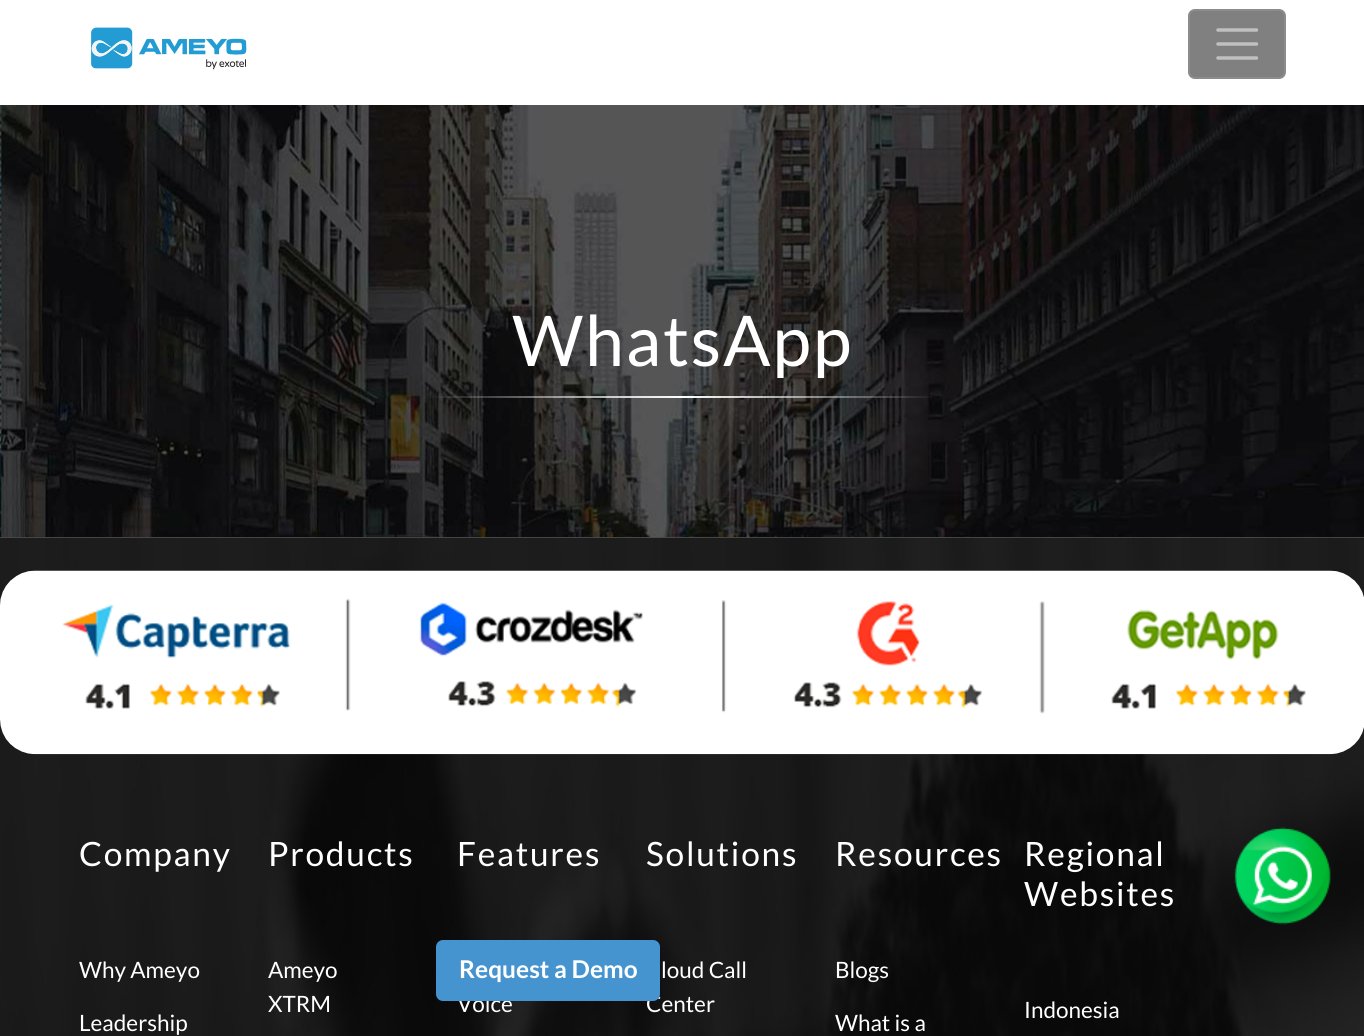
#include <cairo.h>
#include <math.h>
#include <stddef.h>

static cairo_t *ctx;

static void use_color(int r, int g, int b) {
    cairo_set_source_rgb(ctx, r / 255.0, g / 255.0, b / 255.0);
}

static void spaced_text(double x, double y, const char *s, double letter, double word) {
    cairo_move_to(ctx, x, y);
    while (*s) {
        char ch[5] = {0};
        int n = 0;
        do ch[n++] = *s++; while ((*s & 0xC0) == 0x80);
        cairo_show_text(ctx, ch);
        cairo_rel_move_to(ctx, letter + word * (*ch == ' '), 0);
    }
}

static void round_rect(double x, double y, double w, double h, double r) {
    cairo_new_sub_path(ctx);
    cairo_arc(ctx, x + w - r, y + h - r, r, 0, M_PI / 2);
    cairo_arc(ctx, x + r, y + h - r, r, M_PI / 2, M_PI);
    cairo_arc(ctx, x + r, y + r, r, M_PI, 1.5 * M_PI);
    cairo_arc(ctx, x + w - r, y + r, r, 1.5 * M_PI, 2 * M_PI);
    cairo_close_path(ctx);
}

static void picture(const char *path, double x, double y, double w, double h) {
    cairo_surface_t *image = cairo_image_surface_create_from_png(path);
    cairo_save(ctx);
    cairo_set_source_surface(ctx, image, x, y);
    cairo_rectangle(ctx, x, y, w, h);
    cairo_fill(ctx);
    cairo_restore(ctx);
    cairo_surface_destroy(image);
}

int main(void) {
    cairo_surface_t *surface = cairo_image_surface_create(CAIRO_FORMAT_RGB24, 1364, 1036);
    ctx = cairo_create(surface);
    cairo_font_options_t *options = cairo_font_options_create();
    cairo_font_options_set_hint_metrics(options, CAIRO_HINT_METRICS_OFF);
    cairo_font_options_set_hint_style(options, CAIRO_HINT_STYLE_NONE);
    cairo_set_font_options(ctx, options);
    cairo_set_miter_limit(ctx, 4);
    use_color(255, 255, 255);
    cairo_paint(ctx);
    picture("img1.png", 0, 105, 1364, 433);
    cairo_select_font_face(ctx, "Lato", CAIRO_FONT_SLANT_NORMAL, CAIRO_FONT_WEIGHT_NORMAL);
    cairo_set_font_size(ctx, 70);
    use_color(255, 255, 255);
    spaced_text(512, 366, "WhatsApp", 1.75, 0);
    picture("img2.png", 0, 537, 1364, 499);
    picture("img3.png", 0, 570, 1364, 185);
    cairo_set_font_size(ctx, 33.5);
    spaced_text(79, 866, "Company", 1.75, 0);
    cairo_set_font_size(ctx, 22.5);
    cairo_move_to(ctx, 79, 978);
    cairo_show_text(ctx, "Why Ameyo");
    cairo_move_to(ctx, 79, 1031);
    cairo_show_text(ctx, "Leadership");
    cairo_set_font_size(ctx, 33.5);
    spaced_text(268, 866, "Products", 1.75, 0);
    cairo_set_font_size(ctx, 22.5);
    cairo_move_to(ctx, 268, 978);
    cairo_show_text(ctx, "Ameyo");
    cairo_move_to(ctx, 268, 1012);
    cairo_show_text(ctx, "XTRM");
    cairo_set_font_size(ctx, 33.5);
    spaced_text(457, 866, "Features", 1.75, 0);
    cairo_set_font_size(ctx, 22.5);
    cairo_move_to(ctx, 457, 1012);
    cairo_show_text(ctx, "Voice");
    cairo_set_font_size(ctx, 33.5);
    spaced_text(646, 866, "Solutions", 1.75, 0);
    cairo_set_font_size(ctx, 22.5);
    cairo_move_to(ctx, 661, 978);
    cairo_show_text(ctx, "loud Call");
    cairo_move_to(ctx, 646, 1012);
    cairo_show_text(ctx, "Center");
    cairo_set_font_size(ctx, 33.5);
    spaced_text(835, 866, "Resources", 1.75, 0);
    cairo_set_font_size(ctx, 22.5);
    cairo_move_to(ctx, 835, 978);
    cairo_show_text(ctx, "Blogs");
    cairo_move_to(ctx, 835, 1031);
    cairo_show_text(ctx, "What is a");
    cairo_set_font_size(ctx, 33.5);
    spaced_text(1024, 866, "Regional", 1.75, 0);
    spaced_text(1024, 906, "Websites", 1.75, 0);
    cairo_set_font_size(ctx, 22.5);
    cairo_move_to(ctx, 1024, 1018);
    cairo_show_text(ctx, "Indonesia");
    picture("img4.png", 1234, 827, 97, 98);
    picture("img5.png", 91, 27, 156, 43);
    use_color(128, 128, 128);
    round_rect(1188, 9, 98, 70, 7);
    cairo_fill(ctx);
    round_rect(1189, 10, 96, 68, 6);
    cairo_set_source_rgba(ctx, 1, 1, 1, 0.1);
    cairo_stroke(ctx);
    cairo_new_path(ctx);
    cairo_move_to(ctx, 1218, 30);
    cairo_line_to(ctx, 1256.5, 30);
    cairo_move_to(ctx, 1218, 44);
    cairo_line_to(ctx, 1256.5, 44);
    cairo_move_to(ctx, 1218, 58);
    cairo_line_to(ctx, 1256.5, 58);
    use_color(192, 192, 192);
    cairo_set_line_width(ctx, 3.5);
    cairo_set_line_cap(ctx, CAIRO_LINE_CAP_ROUND);
    cairo_stroke(ctx);
    use_color(69, 148, 208);
    round_rect(437, 941, 222, 59, 6);
    cairo_fill_preserve(ctx);
    cairo_set_line_width(ctx, 2);
    cairo_set_line_cap(ctx, CAIRO_LINE_CAP_BUTT);
    cairo_stroke(ctx);
    cairo_select_font_face(ctx, "Lato", CAIRO_FONT_SLANT_NORMAL, CAIRO_FONT_WEIGHT_BOLD);
    cairo_set_font_size(ctx, 24.5);
    use_color(255, 255, 255);
    cairo_move_to(ctx, 459, 978);
    cairo_show_text(ctx, "Request a Demo");
    cairo_surface_write_to_png(surface, "result.png");
    cairo_font_options_destroy(options);
    cairo_destroy(ctx);
    cairo_surface_destroy(surface);
    return 0;
}
